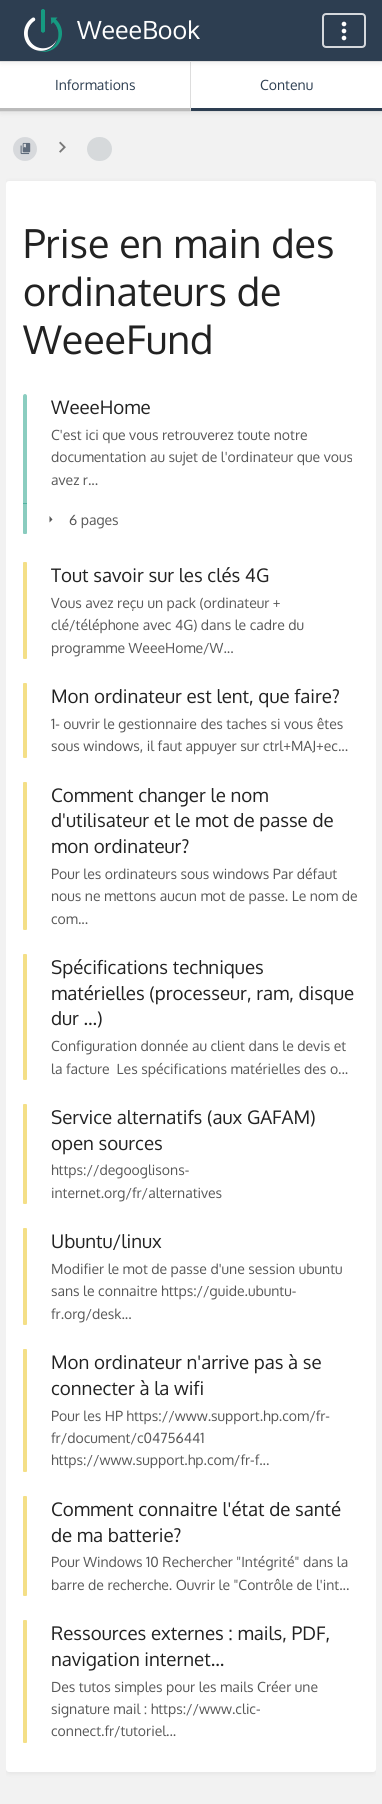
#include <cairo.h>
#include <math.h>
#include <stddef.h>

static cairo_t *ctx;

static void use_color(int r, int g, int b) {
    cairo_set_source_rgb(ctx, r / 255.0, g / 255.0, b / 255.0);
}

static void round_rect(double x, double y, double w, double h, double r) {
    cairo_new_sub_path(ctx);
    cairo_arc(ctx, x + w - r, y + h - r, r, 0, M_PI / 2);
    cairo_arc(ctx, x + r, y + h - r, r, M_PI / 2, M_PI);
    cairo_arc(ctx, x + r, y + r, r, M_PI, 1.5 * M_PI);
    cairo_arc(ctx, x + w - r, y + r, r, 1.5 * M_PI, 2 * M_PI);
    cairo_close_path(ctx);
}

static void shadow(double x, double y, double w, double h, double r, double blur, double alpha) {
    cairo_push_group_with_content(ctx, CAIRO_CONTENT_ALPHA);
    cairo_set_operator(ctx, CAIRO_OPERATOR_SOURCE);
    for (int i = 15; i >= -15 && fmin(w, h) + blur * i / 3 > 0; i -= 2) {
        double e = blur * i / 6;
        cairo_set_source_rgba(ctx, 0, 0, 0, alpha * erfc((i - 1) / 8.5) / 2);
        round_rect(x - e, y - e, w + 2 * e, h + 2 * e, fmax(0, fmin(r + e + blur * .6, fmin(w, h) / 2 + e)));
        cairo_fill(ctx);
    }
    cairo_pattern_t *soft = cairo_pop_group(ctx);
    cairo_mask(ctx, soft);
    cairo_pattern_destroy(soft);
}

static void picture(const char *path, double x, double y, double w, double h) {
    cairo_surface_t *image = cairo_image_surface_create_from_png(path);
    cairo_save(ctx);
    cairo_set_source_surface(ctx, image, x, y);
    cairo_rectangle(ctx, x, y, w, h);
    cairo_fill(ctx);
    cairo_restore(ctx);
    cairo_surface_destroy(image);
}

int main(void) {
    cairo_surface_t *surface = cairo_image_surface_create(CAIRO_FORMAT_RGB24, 382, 1804);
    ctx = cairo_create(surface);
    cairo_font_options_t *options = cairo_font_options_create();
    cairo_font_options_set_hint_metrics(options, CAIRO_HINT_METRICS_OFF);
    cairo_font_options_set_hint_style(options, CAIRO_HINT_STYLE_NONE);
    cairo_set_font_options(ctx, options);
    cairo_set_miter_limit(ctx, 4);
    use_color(242, 242, 242);
    cairo_paint(ctx);
    use_color(0, 0, 0);
    shadow(1, 64, 380, 48, 0, 3, 0.1);
    use_color(255, 255, 255);
    cairo_rectangle(ctx, 0, 62, 382, 49);
    cairo_fill(ctx);
    use_color(221, 221, 221);
    cairo_new_path(ctx);
    cairo_move_to(ctx, 191, 62);
    cairo_line_to(ctx, 191, 111);
    cairo_line_to(ctx, 190, 108);
    cairo_line_to(ctx, 190, 62);
    cairo_close_path(ctx);
    cairo_fill(ctx);
    use_color(0, 0, 0);
    shadow(1, 2, 380, 60, 0, 3, 0.1);
    use_color(45, 62, 81);
    cairo_rectangle(ctx, 0, 0, 382, 61);
    cairo_fill(ctx);
    use_color(221, 221, 221);
    cairo_rectangle(ctx, 0, 61, 382, 1);
    cairo_fill(ctx);
    picture("img1.png", 24, 9, 38, 43);
    cairo_select_font_face(ctx, "Oxygen", CAIRO_FONT_SLANT_NORMAL, CAIRO_FONT_WEIGHT_NORMAL);
    cairo_set_font_size(ctx, 25);
    use_color(255, 255, 255);
    cairo_move_to(ctx, 77, 39);
    cairo_show_text(ctx, "WeeeBook");
    round_rect(323, 14, 42, 33, 3);
    use_color(213, 216, 220);
    cairo_stroke(ctx);
    picture("img2.png", 341, 21, 6, 20);
    use_color(221, 221, 221);
    cairo_rectangle(ctx, 0, 111, 382, 1);
    cairo_fill(ctx);
    use_color(187, 187, 187);
    cairo_new_path(ctx);
    cairo_move_to(ctx, 191, 111);
    cairo_line_to(ctx, 0, 111);
    cairo_line_to(ctx, 0, 108);
    cairo_line_to(ctx, 190, 108);
    cairo_close_path(ctx);
    cairo_fill(ctx);
    cairo_set_font_size(ctx, 14);
    use_color(45, 62, 81);
    cairo_move_to(ctx, 55, 90);
    cairo_show_text(ctx, "Informations");
    cairo_rectangle(ctx, 191, 108, 191, 3);
    cairo_fill(ctx);
    cairo_move_to(ctx, 260, 90);
    cairo_show_text(ctx, "Contenu");
    picture("img3.png", 20, 142, 11, 13);
    cairo_set_source_rgba(ctx, 0.176, 0.243, 0.318, 0.14);
    cairo_arc(ctx, 25, 149, 12, 0, 2 * M_PI);
    cairo_fill(ctx);
    picture("img4.png", 59, 141, 7, 12);
    use_color(214, 217, 219);
    round_rect(87, 137, 25, 24, 12);
    cairo_fill(ctx);
    cairo_save(ctx);
    cairo_rectangle(ctx, 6, 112, 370, 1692);
    cairo_clip(ctx);
    use_color(0, 0, 0);
    shadow(7, 183, 368, 1589, 2, 3, 0.1);
    cairo_restore(ctx);
    use_color(255, 255, 255);
    round_rect(6, 181, 370, 1591, 3);
    cairo_fill(ctx);
    cairo_set_font_size(ctx, 39.5);
    use_color(34, 34, 34);
    cairo_move_to(ctx, 23, 258);
    cairo_show_text(ctx, "Prise en main des");
    cairo_move_to(ctx, 23, 306);
    cairo_show_text(ctx, "ordinateurs de");
    cairo_move_to(ctx, 23, 354);
    cairo_show_text(ctx, "WeeeFund");
    use_color(139, 205, 192);
    cairo_new_path(ctx);
    cairo_move_to(ctx, 25, 394);
    cairo_curve_to(ctx, 26, 394, 27, 395, 27, 396);
    cairo_line_to(ctx, 27, 503);
    cairo_line_to(ctx, 23, 503);
    cairo_line_to(ctx, 23, 396);
    cairo_curve_to(ctx, 23, 395, 24, 394, 25, 394);
    cairo_close_path(ctx);
    cairo_fill(ctx);
    cairo_set_font_size(ctx, 18.7);
    use_color(34, 34, 34);
    cairo_move_to(ctx, 51, 414);
    cairo_show_text(ctx, "WeeeHome");
    cairo_set_font_size(ctx, 14);
    use_color(87, 87, 87);
    cairo_move_to(ctx, 51, 440);
    cairo_show_text(ctx, "C'est ici que vous retrouverez toute notre");
    cairo_move_to(ctx, 51, 462);
    cairo_show_text(ctx, "documentation au sujet de l'ordinateur que vous");
    cairo_move_to(ctx, 51, 485);
    cairo_show_text(ctx, "avez r...");
    use_color(139, 205, 192);
    cairo_rectangle(ctx, 23, 503, 4, 1);
    cairo_fill(ctx);
    cairo_set_source_rgba(ctx, 0.086, 0.608, 0.506, 0.5);
    cairo_new_path(ctx);
    cairo_move_to(ctx, 23, 503);
    cairo_line_to(ctx, 27, 503);
    cairo_line_to(ctx, 27, 533);
    cairo_curve_to(ctx, 27, 533.5, 26.5, 534, 26, 534);
    cairo_line_to(ctx, 24, 534);
    cairo_curve_to(ctx, 23.5, 534, 23, 533.5, 23, 533);
    cairo_close_path(ctx);
    cairo_fill(ctx);
    use_color(87, 87, 87);
    cairo_new_path(ctx);
    cairo_move_to(ctx, 49.5, 522.5);
    cairo_line_to(ctx, 52.5, 519.5);
    cairo_line_to(ctx, 49.5, 516);
    cairo_close_path(ctx);
    cairo_fill(ctx);
    cairo_move_to(ctx, 69, 525);
    cairo_show_text(ctx, "6 pages");
    use_color(244, 223, 135);
    round_rect(23, 562, 4, 97, 1);
    cairo_fill(ctx);
    cairo_set_font_size(ctx, 18.7);
    use_color(34, 34, 34);
    cairo_move_to(ctx, 51, 582);
    cairo_show_text(ctx, "Tout savoir sur les clés 4G");
    cairo_set_font_size(ctx, 14);
    use_color(87, 87, 87);
    cairo_move_to(ctx, 51, 608);
    cairo_show_text(ctx, "Vous avez reçu un pack (ordinateur +");
    cairo_move_to(ctx, 51, 630);
    cairo_show_text(ctx, "clé/téléphone avec 4G) dans le cadre du");
    cairo_move_to(ctx, 51, 653);
    cairo_show_text(ctx, "programme WeeeHome/W...");
    use_color(244, 223, 135);
    round_rect(23, 683, 4, 75, 1);
    cairo_fill(ctx);
    cairo_set_font_size(ctx, 18.7);
    use_color(34, 34, 34);
    cairo_move_to(ctx, 51, 703);
    cairo_show_text(ctx, "Mon ordinateur est lent, que faire?");
    cairo_set_font_size(ctx, 14);
    use_color(87, 87, 87);
    cairo_move_to(ctx, 51, 729);
    cairo_show_text(ctx, "1- ouvrir le gestionnaire des taches si vous êtes");
    cairo_move_to(ctx, 51, 751);
    cairo_show_text(ctx, "sous windows, il faut appuyer sur ctrl+MAJ+ec...");
    use_color(244, 223, 135);
    round_rect(23, 782, 4, 148, 1);
    cairo_fill(ctx);
    cairo_set_font_size(ctx, 18.7);
    use_color(34, 34, 34);
    cairo_move_to(ctx, 51, 802);
    cairo_show_text(ctx, "Comment changer le nom");
    cairo_move_to(ctx, 51, 827);
    cairo_show_text(ctx, "d'utilisateur et le mot de passe de");
    cairo_move_to(ctx, 51, 853);
    cairo_show_text(ctx, "mon ordinateur?");
    cairo_set_font_size(ctx, 14);
    use_color(87, 87, 87);
    cairo_move_to(ctx, 51, 879);
    cairo_show_text(ctx, "Pour les ordinateurs sous windows Par défaut");
    cairo_move_to(ctx, 51, 901);
    cairo_show_text(ctx, "nous ne mettons aucun mot de passe. Le nom de");
    cairo_move_to(ctx, 51, 924);
    cairo_show_text(ctx, "com...");
    use_color(244, 223, 135);
    round_rect(23, 954, 4, 126, 1);
    cairo_fill(ctx);
    cairo_set_font_size(ctx, 18.7);
    use_color(34, 34, 34);
    cairo_move_to(ctx, 51, 974);
    cairo_show_text(ctx, "Spécifications techniques");
    cairo_move_to(ctx, 51, 1000);
    cairo_show_text(ctx, "matérielles (processeur, ram, disque");
    cairo_move_to(ctx, 51, 1025);
    cairo_show_text(ctx, "dur ...)");
    cairo_set_font_size(ctx, 14);
    use_color(87, 87, 87);
    cairo_move_to(ctx, 51, 1051);
    cairo_show_text(ctx, "Configuration donnée au client dans le devis et");
    cairo_move_to(ctx, 51, 1074);
    cairo_show_text(ctx, "la facture  Les spécifications matérielles des o...");
    use_color(244, 223, 135);
    round_rect(23, 1104, 4, 100, 1);
    cairo_fill(ctx);
    cairo_set_font_size(ctx, 18.7);
    use_color(34, 34, 34);
    cairo_move_to(ctx, 51, 1124);
    cairo_show_text(ctx, "Service alternatifs (aux GAFAM)");
    cairo_move_to(ctx, 51, 1150);
    cairo_show_text(ctx, "open sources");
    cairo_set_font_size(ctx, 14);
    use_color(87, 87, 87);
    cairo_move_to(ctx, 51, 1175);
    cairo_show_text(ctx, "https://degooglisons-");
    cairo_move_to(ctx, 51, 1198);
    cairo_show_text(ctx, "internet.org/fr/alternatives");
    use_color(244, 223, 135);
    round_rect(23, 1228, 4, 97, 1);
    cairo_fill(ctx);
    cairo_set_font_size(ctx, 18.7);
    use_color(34, 34, 34);
    cairo_move_to(ctx, 51, 1248);
    cairo_show_text(ctx, "Ubuntu/linux");
    cairo_set_font_size(ctx, 14);
    use_color(87, 87, 87);
    cairo_move_to(ctx, 51, 1274);
    cairo_show_text(ctx, "Modifier le mot de passe d'une session ubuntu");
    cairo_move_to(ctx, 51, 1296);
    cairo_show_text(ctx, "sans le connaitre https://guide.ubuntu-");
    cairo_move_to(ctx, 51, 1319);
    cairo_show_text(ctx, "fr.org/desk...");
    use_color(244, 223, 135);
    round_rect(23, 1349, 4, 123, 1);
    cairo_fill(ctx);
    cairo_set_font_size(ctx, 18.7);
    use_color(34, 34, 34);
    cairo_move_to(ctx, 51, 1369);
    cairo_show_text(ctx, "Mon ordinateur n'arrive pas à se");
    cairo_move_to(ctx, 51, 1395);
    cairo_show_text(ctx, "connecter à la wifi");
    cairo_set_font_size(ctx, 14);
    use_color(87, 87, 87);
    cairo_move_to(ctx, 51, 1421);
    cairo_show_text(ctx, "Pour les HP https://www.support.hp.com/fr-");
    cairo_move_to(ctx, 51, 1443);
    cairo_show_text(ctx, "fr/document/c04756441");
    cairo_move_to(ctx, 51, 1465);
    cairo_show_text(ctx, "https://www.support.hp.com/fr-f...");
    use_color(244, 223, 135);
    round_rect(23, 1496, 4, 100, 1);
    cairo_fill(ctx);
    cairo_set_font_size(ctx, 18.7);
    use_color(34, 34, 34);
    cairo_move_to(ctx, 51, 1516);
    cairo_show_text(ctx, "Comment connaitre l'état de santé");
    cairo_move_to(ctx, 51, 1542);
    cairo_show_text(ctx, "de ma batterie?");
    cairo_set_font_size(ctx, 14);
    use_color(87, 87, 87);
    cairo_move_to(ctx, 51, 1567);
    cairo_show_text(ctx, "Pour Windows 10 Rechercher \"Intégrité\" dans la");
    cairo_move_to(ctx, 51, 1590);
    cairo_show_text(ctx, "barre de recherche. Ouvrir le \"Contrôle de l'int...");
    use_color(244, 223, 135);
    round_rect(23, 1620, 4, 123, 1);
    cairo_fill(ctx);
    cairo_set_font_size(ctx, 18.7);
    use_color(34, 34, 34);
    cairo_move_to(ctx, 51, 1640);
    cairo_show_text(ctx, "Ressources externes : mails, PDF,");
    cairo_move_to(ctx, 51, 1666);
    cairo_show_text(ctx, "navigation internet...");
    cairo_set_font_size(ctx, 14);
    use_color(87, 87, 87);
    cairo_move_to(ctx, 51, 1692);
    cairo_show_text(ctx, "Des tutos simples pour les mails Créer une");
    cairo_move_to(ctx, 51, 1714);
    cairo_show_text(ctx, "signature mail : https://www.clic-");
    cairo_move_to(ctx, 51, 1736);
    cairo_show_text(ctx, "connect.fr/tutoriel...");
    cairo_surface_write_to_png(surface, "result.png");
    cairo_font_options_destroy(options);
    cairo_destroy(ctx);
    cairo_surface_destroy(surface);
    return 0;
}
